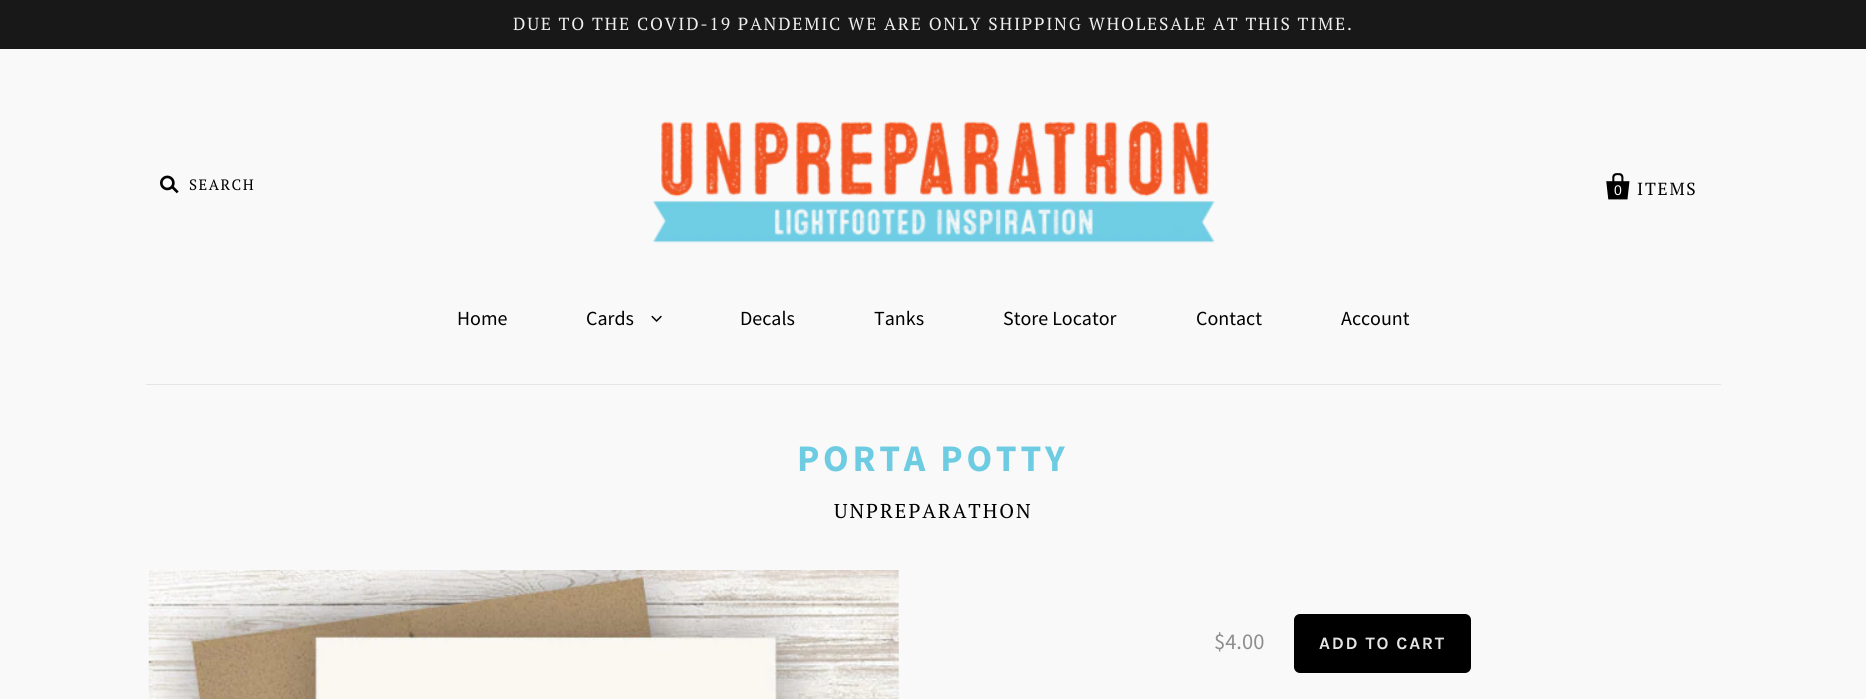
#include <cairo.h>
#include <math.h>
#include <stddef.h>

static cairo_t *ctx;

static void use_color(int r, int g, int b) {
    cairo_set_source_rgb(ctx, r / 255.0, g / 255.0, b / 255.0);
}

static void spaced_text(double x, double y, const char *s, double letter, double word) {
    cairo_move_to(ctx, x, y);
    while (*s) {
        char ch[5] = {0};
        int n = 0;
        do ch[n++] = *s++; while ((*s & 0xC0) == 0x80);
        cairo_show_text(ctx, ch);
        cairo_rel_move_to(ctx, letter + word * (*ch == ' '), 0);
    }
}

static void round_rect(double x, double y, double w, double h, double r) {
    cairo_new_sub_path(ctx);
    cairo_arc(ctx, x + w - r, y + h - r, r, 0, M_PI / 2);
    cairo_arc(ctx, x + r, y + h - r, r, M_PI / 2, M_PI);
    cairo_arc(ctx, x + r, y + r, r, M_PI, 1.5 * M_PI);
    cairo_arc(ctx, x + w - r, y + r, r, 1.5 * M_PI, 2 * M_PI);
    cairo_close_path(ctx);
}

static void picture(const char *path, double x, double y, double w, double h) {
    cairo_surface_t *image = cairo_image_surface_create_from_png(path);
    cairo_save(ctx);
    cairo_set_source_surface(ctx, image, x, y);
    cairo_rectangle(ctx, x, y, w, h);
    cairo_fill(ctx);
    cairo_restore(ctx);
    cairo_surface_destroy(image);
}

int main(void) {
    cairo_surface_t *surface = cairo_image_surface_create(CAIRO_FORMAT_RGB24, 1866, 699);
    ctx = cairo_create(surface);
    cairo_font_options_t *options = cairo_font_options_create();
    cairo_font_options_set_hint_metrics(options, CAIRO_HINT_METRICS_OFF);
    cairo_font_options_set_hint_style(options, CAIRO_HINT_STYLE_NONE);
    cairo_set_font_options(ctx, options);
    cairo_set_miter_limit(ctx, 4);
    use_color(249, 249, 249);
    cairo_paint(ctx);
    use_color(24, 24, 24);
    cairo_rectangle(ctx, 0, 0, 1866, 49);
    cairo_fill(ctx);
    cairo_select_font_face(ctx, "PT Serif", CAIRO_FONT_SLANT_NORMAL, CAIRO_FONT_WEIGHT_NORMAL);
    cairo_set_font_size(ctx, 17.5);
    use_color(239, 239, 239);
    spaced_text(513, 30, "DUE TO THE COVID-19 PANDEMIC WE ARE ONLY SHIPPING WHOLESALE AT THIS TIME.", 1.75, 0);
    use_color(229, 229, 229);
    cairo_rectangle(ctx, 146, 384, 1575, 1);
    cairo_fill(ctx);
    picture("img1.png", 160, 175, 19, 19);
    cairo_set_font_size(ctx, 15);
    use_color(0, 0, 0);
    spaced_text(189, 190, "SEARCH", 1.5, 0);
    picture("img2.png", 652, 120, 563, 123);
    picture("img3.png", 1606, 173, 24, 27);
    cairo_set_font_size(ctx, 17.5);
    spaced_text(1637, 195, "ITEMS", 1.75, 0);
    cairo_select_font_face(ctx, "Liberation Sans", CAIRO_FONT_SLANT_NORMAL, CAIRO_FONT_WEIGHT_NORMAL);
    cairo_set_font_size(ctx, 14);
    use_color(255, 255, 255);
    spaced_text(1614, 195, "0", 1.75, 0);
    cairo_select_font_face(ctx, "Source Sans Pro", CAIRO_FONT_SLANT_NORMAL, CAIRO_FONT_WEIGHT_NORMAL);
    cairo_set_font_size(ctx, 20);
    use_color(0, 0, 0);
    cairo_move_to(ctx, 457, 325);
    cairo_show_text(ctx, "Home");
    cairo_move_to(ctx, 586, 325);
    cairo_show_text(ctx, "Cards");
    picture("img4.png", 651, 315, 11, 7);
    cairo_move_to(ctx, 740, 325);
    cairo_show_text(ctx, "Decals");
    cairo_move_to(ctx, 874, 325);
    cairo_show_text(ctx, "Tanks");
    cairo_move_to(ctx, 1003, 325);
    cairo_show_text(ctx, "Store Locator");
    cairo_move_to(ctx, 1196, 325);
    cairo_show_text(ctx, "Contact");
    cairo_move_to(ctx, 1341, 325);
    cairo_show_text(ctx, "Account");
    cairo_select_font_face(ctx, "Source Sans Pro", CAIRO_FONT_SLANT_NORMAL, CAIRO_FONT_WEIGHT_BOLD);
    cairo_set_font_size(ctx, 37.5);
    use_color(110, 204, 226);
    spaced_text(797, 471, "PORTA POTTY", 3.75, 0);
    cairo_select_font_face(ctx, "PT Serif", CAIRO_FONT_SLANT_NORMAL, CAIRO_FONT_WEIGHT_NORMAL);
    cairo_set_font_size(ctx, 20);
    use_color(0, 0, 0);
    spaced_text(834, 518, "UNPREPARATHON", 2, 0);
    picture("img5.png", 148, 570, 751, 129);
    cairo_select_font_face(ctx, "Source Sans Pro", CAIRO_FONT_SLANT_NORMAL, CAIRO_FONT_WEIGHT_NORMAL);
    cairo_set_font_size(ctx, 22.5);
    use_color(142, 142, 142);
    cairo_move_to(ctx, 1214, 649);
    cairo_show_text(ctx, "$4.00");
    use_color(0, 0, 0);
    round_rect(1294, 614, 177, 59, 6);
    cairo_fill(ctx);
    cairo_select_font_face(ctx, "Karla", CAIRO_FONT_SLANT_NORMAL, CAIRO_FONT_WEIGHT_BOLD);
    cairo_set_font_size(ctx, 17.5);
    use_color(228, 228, 228);
    spaced_text(1319, 649, "ADD TO CART", 1.75, 0);
    cairo_surface_write_to_png(surface, "result.png");
    cairo_font_options_destroy(options);
    cairo_destroy(ctx);
    cairo_surface_destroy(surface);
    return 0;
}
